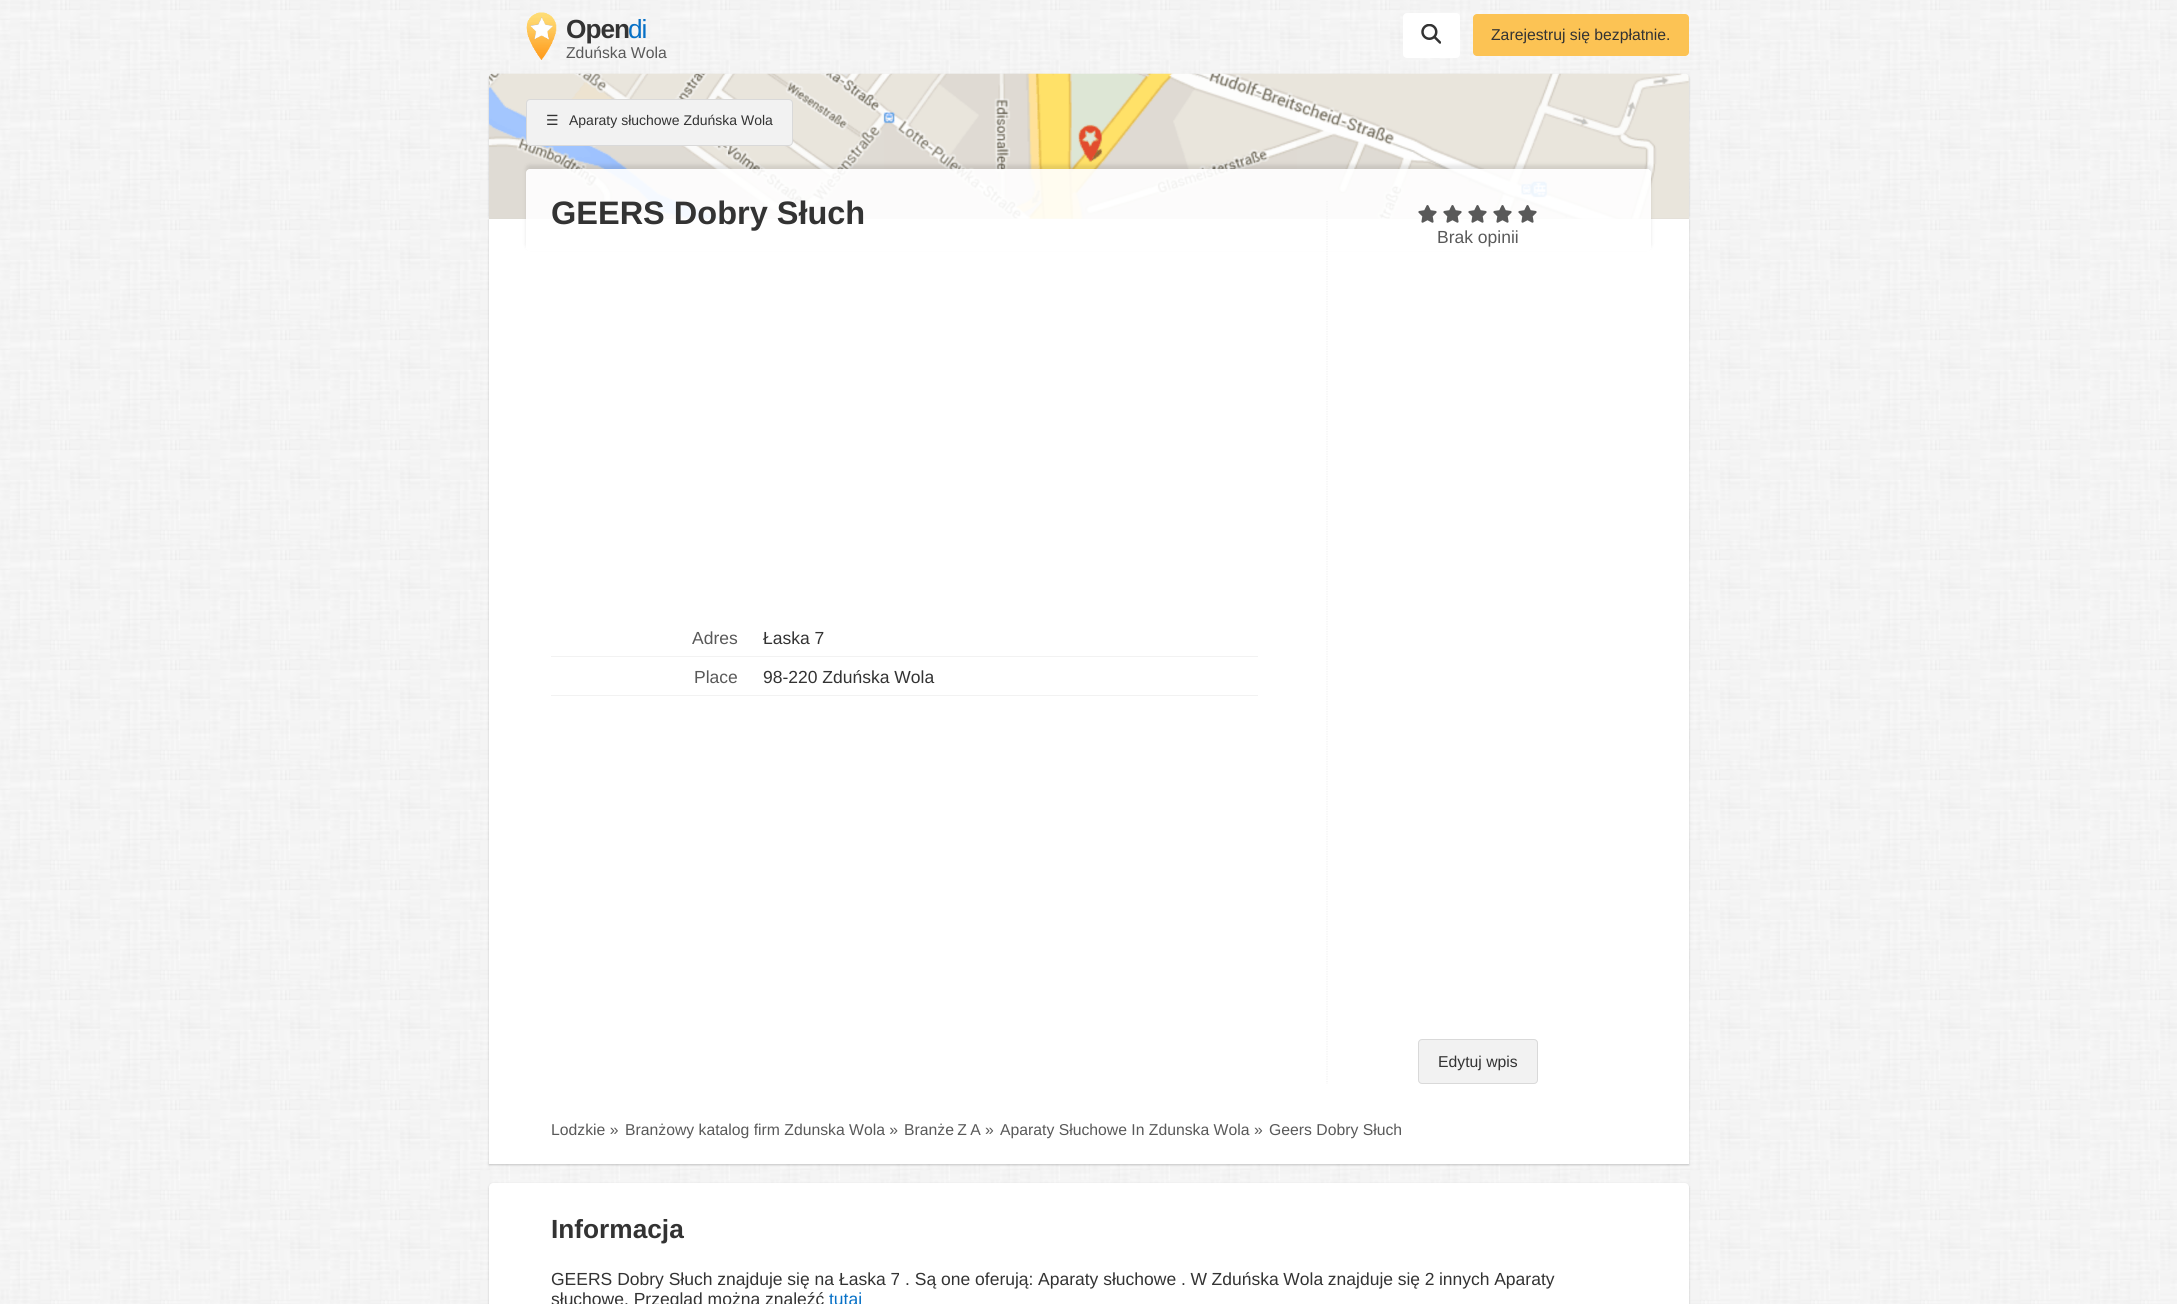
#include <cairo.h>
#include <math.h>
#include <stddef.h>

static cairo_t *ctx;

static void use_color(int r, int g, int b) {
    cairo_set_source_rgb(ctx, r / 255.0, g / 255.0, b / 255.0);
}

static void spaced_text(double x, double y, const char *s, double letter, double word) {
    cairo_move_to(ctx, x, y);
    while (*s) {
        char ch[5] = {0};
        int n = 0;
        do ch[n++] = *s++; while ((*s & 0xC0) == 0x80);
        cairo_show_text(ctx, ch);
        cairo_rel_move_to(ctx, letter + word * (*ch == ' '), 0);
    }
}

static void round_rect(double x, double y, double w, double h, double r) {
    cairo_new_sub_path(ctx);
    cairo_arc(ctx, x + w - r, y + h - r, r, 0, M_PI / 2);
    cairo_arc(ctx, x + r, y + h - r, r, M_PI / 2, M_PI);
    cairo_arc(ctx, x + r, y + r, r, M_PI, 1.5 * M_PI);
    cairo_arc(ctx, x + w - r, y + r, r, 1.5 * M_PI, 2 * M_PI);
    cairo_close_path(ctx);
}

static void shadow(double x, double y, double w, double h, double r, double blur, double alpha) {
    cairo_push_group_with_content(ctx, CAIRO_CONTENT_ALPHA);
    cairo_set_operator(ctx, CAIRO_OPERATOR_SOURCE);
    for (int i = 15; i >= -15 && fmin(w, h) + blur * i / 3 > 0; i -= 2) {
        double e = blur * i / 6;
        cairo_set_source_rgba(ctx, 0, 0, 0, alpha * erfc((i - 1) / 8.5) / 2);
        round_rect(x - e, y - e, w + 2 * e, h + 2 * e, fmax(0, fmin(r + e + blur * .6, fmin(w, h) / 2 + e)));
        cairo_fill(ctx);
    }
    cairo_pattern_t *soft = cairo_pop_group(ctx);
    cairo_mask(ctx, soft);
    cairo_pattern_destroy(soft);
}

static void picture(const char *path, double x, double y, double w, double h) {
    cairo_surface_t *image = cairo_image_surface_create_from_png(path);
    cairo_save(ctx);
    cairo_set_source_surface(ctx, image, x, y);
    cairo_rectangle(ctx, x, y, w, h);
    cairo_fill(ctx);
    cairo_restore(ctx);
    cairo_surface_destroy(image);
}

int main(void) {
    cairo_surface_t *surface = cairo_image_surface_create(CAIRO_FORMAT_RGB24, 2177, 1304);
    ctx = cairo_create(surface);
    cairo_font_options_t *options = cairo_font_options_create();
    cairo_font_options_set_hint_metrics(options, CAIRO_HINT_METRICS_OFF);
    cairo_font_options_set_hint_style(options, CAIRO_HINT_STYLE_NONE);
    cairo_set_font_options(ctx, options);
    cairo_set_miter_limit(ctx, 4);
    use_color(255, 255, 255);
    cairo_paint(ctx);
    picture("img1.png", 0, 0, 2177, 1304);
    picture("img2.png", 526, 12, 31, 48);
    cairo_select_font_face(ctx, "Liberation Sans", CAIRO_FONT_SLANT_NORMAL, CAIRO_FONT_WEIGHT_BOLD);
    cairo_set_font_size(ctx, 26.25);
    use_color(51, 51, 51);
    spaced_text(566, 38, "Open", -1, 0);
    cairo_select_font_face(ctx, "Liberation Sans", CAIRO_FONT_SLANT_NORMAL, CAIRO_FONT_WEIGHT_NORMAL);
    use_color(6, 112, 198);
    spaced_text(628, 38, "di", -1, 0);
    cairo_set_font_size(ctx, 15.75);
    use_color(89, 89, 89);
    cairo_move_to(ctx, 566, 58);
    cairo_show_text(ctx, "Zduńska Wola");
    use_color(255, 255, 255);
    round_rect(1403, 13, 57, 45, 4);
    cairo_fill(ctx);
    picture("img3.png", 1421, 24, 20, 20);
    use_color(252, 195, 84);
    round_rect(1473, 14, 216, 42, 4);
    cairo_fill(ctx);
    use_color(51, 51, 51);
    cairo_move_to(ctx, 1491, 40);
    cairo_show_text(ctx, "Zarejestruj się bezpłatnie.");
    use_color(0, 0, 0);
    shadow(489, 75, 1200, 145, 4, 1, 0.2);
    use_color(233, 229, 220);
    cairo_new_path(ctx);
    cairo_move_to(ctx, 493, 74);
    cairo_line_to(ctx, 1685, 74);
    cairo_curve_to(ctx, 1687, 74, 1689, 76, 1689, 78);
    cairo_line_to(ctx, 1689, 219);
    cairo_line_to(ctx, 489, 219);
    cairo_line_to(ctx, 489, 78);
    cairo_curve_to(ctx, 489, 76, 491, 74, 493, 74);
    cairo_close_path(ctx);
    cairo_fill(ctx);
    picture("img4.png", 488, 73, 1201, 146);
    use_color(242, 242, 242);
    round_rect(526.5, 99.5, 266, 46, 3.5);
    cairo_fill_preserve(ctx);
    use_color(217, 217, 217);
    cairo_set_line_width(ctx, 1);
    cairo_stroke(ctx);
    cairo_select_font_face(ctx, "DejaVu Sans", CAIRO_FONT_SLANT_NORMAL, CAIRO_FONT_WEIGHT_NORMAL);
    cairo_set_font_size(ctx, 14);
    use_color(51, 51, 51);
    cairo_move_to(ctx, 546, 125);
    cairo_show_text(ctx, "☰");
    cairo_select_font_face(ctx, "Liberation Sans", CAIRO_FONT_SLANT_NORMAL, CAIRO_FONT_WEIGHT_NORMAL);
    cairo_move_to(ctx, 569, 125);
    cairo_show_text(ctx, "Aparaty słuchowe Zduńska Wola");
    use_color(0, 0, 0);
    shadow(489, 220, 1200, 945, 0, 1, 0.2);
    use_color(255, 255, 255);
    cairo_rectangle(ctx, 489, 219, 1200, 945);
    cairo_fill(ctx);
    cairo_save(ctx);
    cairo_set_fill_rule(ctx, CAIRO_FILL_RULE_EVEN_ODD);
    cairo_new_path(ctx);
    cairo_move_to(ctx, 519, 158);
    cairo_line_to(ctx, 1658, 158);
    cairo_line_to(ctx, 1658, 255);
    cairo_line_to(ctx, 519, 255);
    cairo_close_path(ctx);
    cairo_move_to(ctx, 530, 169);
    cairo_line_to(ctx, 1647, 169);
    cairo_curve_to(ctx, 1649, 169, 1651, 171, 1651, 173);
    cairo_line_to(ctx, 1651, 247);
    cairo_curve_to(ctx, 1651, 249, 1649, 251, 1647, 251);
    cairo_line_to(ctx, 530, 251);
    cairo_curve_to(ctx, 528, 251, 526, 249, 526, 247);
    cairo_line_to(ctx, 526, 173);
    cairo_curve_to(ctx, 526, 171, 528, 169, 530, 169);
    cairo_close_path(ctx);
    cairo_clip(ctx);
    use_color(0, 0, 0);
    shadow(526, 165, 1125, 83, 4, 2, 0.1);
    cairo_restore(ctx);
    cairo_set_source_rgba(ctx, 1, 1, 1, 0.9);
    round_rect(526, 169, 1125, 82, 4);
    cairo_fill(ctx);
    cairo_select_font_face(ctx, "Liberation Sans", CAIRO_FONT_SLANT_NORMAL, CAIRO_FONT_WEIGHT_BOLD);
    cairo_set_font_size(ctx, 32.5);
    use_color(51, 51, 51);
    cairo_move_to(ctx, 551, 224);
    cairo_show_text(ctx, "GEERS Dobry Słuch");
    cairo_new_path(ctx);
    cairo_move_to(ctx, 1327, 201);
    cairo_line_to(ctx, 1327, 1084);
    use_color(242, 242, 242);
    cairo_set_line_width(ctx, 1.2);
    cairo_set_dash(ctx, (double[]){1.25, 1.25}, 2, 0);
    cairo_stroke(ctx);
    cairo_rectangle(ctx, 551, 656, 707, 1);
    cairo_fill(ctx);
    cairo_select_font_face(ctx, "Liberation Sans", CAIRO_FONT_SLANT_NORMAL, CAIRO_FONT_WEIGHT_NORMAL);
    cairo_set_font_size(ctx, 17.5);
    use_color(89, 89, 89);
    cairo_move_to(ctx, 692, 644);
    cairo_show_text(ctx, "Adres");
    use_color(51, 51, 51);
    cairo_move_to(ctx, 763, 644);
    cairo_show_text(ctx, "Łaska 7");
    use_color(242, 242, 242);
    cairo_rectangle(ctx, 551, 695, 707, 1);
    cairo_fill(ctx);
    use_color(89, 89, 89);
    cairo_move_to(ctx, 694, 683);
    cairo_show_text(ctx, "Place");
    use_color(51, 51, 51);
    cairo_move_to(ctx, 763, 683);
    cairo_show_text(ctx, "98-220 Zduńska Wola");
    picture("img5.png", 1418, 205, 19, 18);
    picture("img5.png", 1443, 205, 19, 18);
    picture("img5.png", 1468, 205, 19, 18);
    picture("img6.png", 1493, 205, 19, 18);
    picture("img7.png", 1518, 205, 19, 18);
    use_color(89, 89, 89);
    cairo_move_to(ctx, 1437, 243);
    cairo_show_text(ctx, "Brak opinii");
    use_color(242, 242, 242);
    round_rect(1418.5, 1039.5, 119, 44, 3.5);
    cairo_fill_preserve(ctx);
    use_color(217, 217, 217);
    cairo_set_line_width(ctx, 1);
    cairo_set_dash(ctx, NULL, 0, 0);
    cairo_stroke(ctx);
    cairo_set_font_size(ctx, 15.75);
    use_color(51, 51, 51);
    cairo_move_to(ctx, 1438, 1067);
    cairo_show_text(ctx, "Edytuj wpis");
    use_color(89, 89, 89);
    cairo_move_to(ctx, 551, 1135);
    cairo_show_text(ctx, "Lodzkie »");
    cairo_move_to(ctx, 625, 1135);
    cairo_show_text(ctx, "Branżowy katalog firm Zdunska Wola »");
    spaced_text(904, 1135, "Branże Z A", 0, -1);
    cairo_move_to(ctx, 985, 1135);
    cairo_show_text(ctx, "»");
    cairo_move_to(ctx, 1000, 1135);
    cairo_show_text(ctx, "Aparaty Słuchowe In Zdunska Wola »");
    cairo_move_to(ctx, 1269, 1135);
    cairo_show_text(ctx, "Geers Dobry Słuch");
    use_color(0, 0, 0);
    shadow(489, 1184, 1200, 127, 4, 1, 0.2);
    use_color(255, 255, 255);
    cairo_new_path(ctx);
    cairo_move_to(ctx, 493, 1183);
    cairo_line_to(ctx, 1685, 1183);
    cairo_curve_to(ctx, 1687, 1183, 1689, 1185, 1689, 1187);
    cairo_line_to(ctx, 1689, 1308);
    cairo_line_to(ctx, 489, 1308);
    cairo_line_to(ctx, 489, 1187);
    cairo_curve_to(ctx, 489, 1185, 491, 1183, 493, 1183);
    cairo_close_path(ctx);
    cairo_fill(ctx);
    cairo_select_font_face(ctx, "Liberation Sans", CAIRO_FONT_SLANT_NORMAL, CAIRO_FONT_WEIGHT_BOLD);
    cairo_set_font_size(ctx, 26.25);
    use_color(51, 51, 51);
    cairo_move_to(ctx, 551, 1238);
    cairo_show_text(ctx, "Informacja");
    cairo_select_font_face(ctx, "Liberation Sans", CAIRO_FONT_SLANT_NORMAL, CAIRO_FONT_WEIGHT_NORMAL);
    cairo_set_font_size(ctx, 17.5);
    cairo_move_to(ctx, 551, 1285);
    cairo_show_text(ctx, "GEERS Dobry Słuch znajduje się na Łaska 7");
    cairo_move_to(ctx, 905, 1285);
    cairo_show_text(ctx, ". Są one oferują:");
    cairo_move_to(ctx, 1038, 1285);
    cairo_show_text(ctx, "Aparaty słuchowe");
    spaced_text(1181, 1285, ". W Zduńska Wola znajduje się 2 innych Aparaty", 0, -0.25);
    cairo_move_to(ctx, 551, 1305);
    cairo_show_text(ctx, "słuchowe. Przegląd można znaleźć");
    use_color(6, 112, 198);
    cairo_move_to(ctx, 829, 1305);
    cairo_show_text(ctx, "tutaj");
    cairo_surface_write_to_png(surface, "result.png");
    cairo_font_options_destroy(options);
    cairo_destroy(ctx);
    cairo_surface_destroy(surface);
    return 0;
}
